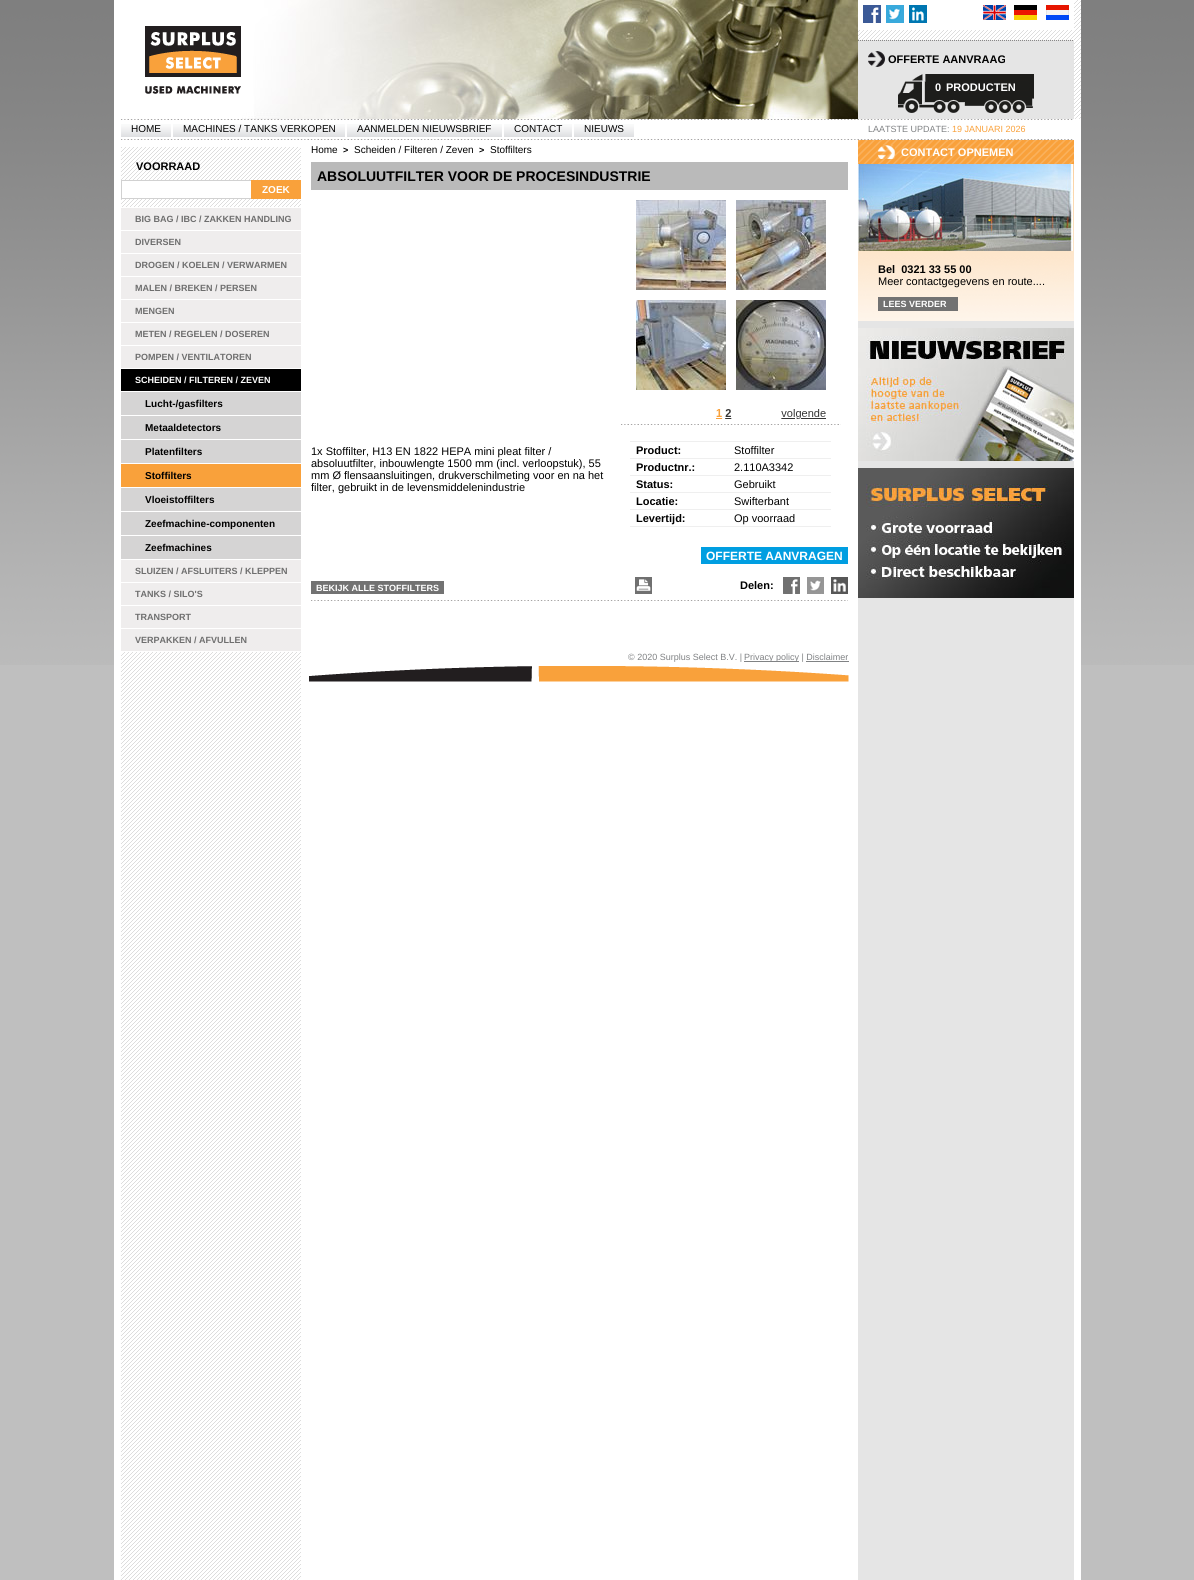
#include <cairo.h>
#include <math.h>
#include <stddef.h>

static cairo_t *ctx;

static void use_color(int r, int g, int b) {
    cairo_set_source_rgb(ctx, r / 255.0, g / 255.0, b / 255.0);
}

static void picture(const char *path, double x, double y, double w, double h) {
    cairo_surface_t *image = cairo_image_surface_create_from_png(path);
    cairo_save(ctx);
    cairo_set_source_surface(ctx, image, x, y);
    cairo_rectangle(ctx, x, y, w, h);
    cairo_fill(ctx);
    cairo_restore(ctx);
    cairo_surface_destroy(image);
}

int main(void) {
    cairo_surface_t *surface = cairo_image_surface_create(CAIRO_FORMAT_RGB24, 1194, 1580);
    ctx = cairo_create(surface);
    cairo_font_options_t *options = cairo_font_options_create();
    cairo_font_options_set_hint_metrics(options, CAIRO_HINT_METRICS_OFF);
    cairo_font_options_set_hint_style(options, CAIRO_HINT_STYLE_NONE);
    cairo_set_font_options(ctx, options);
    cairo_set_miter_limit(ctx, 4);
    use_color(191, 191, 191);
    cairo_paint(ctx);
    picture("img1.png", 0, 0, 1194, 665);
    use_color(255, 255, 255);
    cairo_rectangle(ctx, 114, 0, 967, 1580);
    cairo_fill(ctx);
    picture("img2.png", 121, 140, 953, 1440);
    picture("img3.png", 242, 0, 616, 119);
    picture("img4.png", 145, 26, 96, 68);
    picture("img5.png", 858, 0, 223, 119);
    cairo_rectangle(ctx, 858, 0, 216, 30);
    cairo_fill(ctx);
    picture("img6.png", 863, 5, 18, 18);
    picture("img7.png", 886, 5, 18, 18);
    picture("img8.png", 909, 5, 18, 18);
    picture("img9.png", 983, 5, 23, 15);
    picture("img10.png", 1014, 5, 23, 15);
    picture("img11.png", 1046, 5, 23, 15);
    use_color(229, 229, 229);
    cairo_rectangle(ctx, 858, 40, 216, 79);
    cairo_fill(ctx);
    cairo_new_path(ctx);
    cairo_move_to(ctx, 858, 40.5);
    cairo_line_to(ctx, 1074, 40.5);
    use_color(137, 135, 135);
    cairo_set_line_width(ctx, 1);
    cairo_set_dash(ctx, (double[]){1, 1}, 2, 0);
    cairo_stroke(ctx);
    picture("img12.png", 868, 51, 17, 16);
    cairo_select_font_face(ctx, "Liberation Sans", CAIRO_FONT_SLANT_NORMAL, CAIRO_FONT_WEIGHT_BOLD);
    cairo_set_font_size(ctx, 11);
    use_color(0, 0, 0);
    cairo_move_to(ctx, 888, 63);
    cairo_show_text(ctx, "OFFERTE AANVRAAG");
    picture("img13.png", 898, 74, 136, 39);
    use_color(255, 255, 255);
    cairo_move_to(ctx, 935, 91);
    cairo_show_text(ctx, "0");
    cairo_move_to(ctx, 946, 91);
    cairo_show_text(ctx, "PRODUCTEN");
    picture("img14.png", 121, 119, 952, 1);
    picture("img15.png", 121, 124, 50, 13);
    cairo_select_font_face(ctx, "Liberation Sans", CAIRO_FONT_SLANT_NORMAL, CAIRO_FONT_WEIGHT_NORMAL);
    cairo_set_font_size(ctx, 10);
    use_color(0, 0, 0);
    cairo_move_to(ctx, 131, 132);
    cairo_show_text(ctx, "HOME");
    picture("img16.png", 173, 124, 172, 13);
    cairo_move_to(ctx, 183, 132);
    cairo_show_text(ctx, "MACHINES / TANKS VERKOPEN");
    picture("img17.png", 347, 124, 155, 13);
    cairo_move_to(ctx, 357, 132);
    cairo_show_text(ctx, "AANMELDEN NIEUWSBRIEF");
    picture("img18.png", 504, 124, 68, 13);
    cairo_move_to(ctx, 514, 132);
    cairo_show_text(ctx, "CONTACT");
    picture("img19.png", 574, 124, 60, 13);
    cairo_move_to(ctx, 584, 132);
    cairo_show_text(ctx, "NIEUWS");
    cairo_set_font_size(ctx, 9);
    use_color(128, 130, 132);
    cairo_move_to(ctx, 868, 132);
    cairo_show_text(ctx, "LAATSTE UPDATE:");
    use_color(249, 161, 59);
    cairo_move_to(ctx, 952, 132);
    cairo_show_text(ctx, "19 JANUARI 2026");
    picture("img20.png", 121, 139, 953, 1);
    use_color(255, 255, 255);
    cairo_rectangle(ctx, 121, 140, 180, 7);
    cairo_fill(ctx);
    cairo_select_font_face(ctx, "Liberation Sans", CAIRO_FONT_SLANT_NORMAL, CAIRO_FONT_WEIGHT_BOLD);
    cairo_set_font_size(ctx, 11);
    use_color(0, 0, 0);
    cairo_move_to(ctx, 136, 170);
    cairo_show_text(ctx, "VOORRAAD");
    use_color(255, 255, 255);
    cairo_rectangle(ctx, 122, 181, 129, 17);
    cairo_fill(ctx);
    cairo_rectangle(ctx, 121.5, 180.5, 173, 18);
    use_color(209, 209, 209);
    cairo_set_dash(ctx, NULL, 0, 0);
    cairo_stroke(ctx);
    use_color(249, 161, 59);
    cairo_rectangle(ctx, 251, 180, 50, 19);
    cairo_fill(ctx);
    cairo_set_font_size(ctx, 10);
    use_color(255, 255, 255);
    cairo_move_to(ctx, 262, 193);
    cairo_show_text(ctx, "ZOEK");
    cairo_rectangle(ctx, 121, 651, 180, 1);
    cairo_fill(ctx);
    cairo_rectangle(ctx, 121, 207, 180, 1);
    cairo_fill(ctx);
    use_color(239, 237, 237);
    cairo_rectangle(ctx, 121, 208, 180, 22);
    cairo_fill(ctx);
    cairo_set_font_size(ctx, 9);
    use_color(110, 110, 110);
    cairo_move_to(ctx, 135, 222);
    cairo_show_text(ctx, "BIG BAG / IBC / ZAKKEN HANDLING");
    use_color(255, 255, 255);
    cairo_rectangle(ctx, 121, 230, 180, 1);
    cairo_fill(ctx);
    use_color(239, 237, 237);
    cairo_rectangle(ctx, 121, 231, 180, 22);
    cairo_fill(ctx);
    use_color(110, 110, 110);
    cairo_move_to(ctx, 135, 245);
    cairo_show_text(ctx, "DIVERSEN");
    use_color(255, 255, 255);
    cairo_rectangle(ctx, 121, 253, 180, 1);
    cairo_fill(ctx);
    use_color(239, 237, 237);
    cairo_rectangle(ctx, 121, 254, 180, 22);
    cairo_fill(ctx);
    use_color(110, 110, 110);
    cairo_move_to(ctx, 135, 268);
    cairo_show_text(ctx, "DROGEN / KOELEN / VERWARMEN");
    use_color(255, 255, 255);
    cairo_rectangle(ctx, 121, 276, 180, 1);
    cairo_fill(ctx);
    use_color(239, 237, 237);
    cairo_rectangle(ctx, 121, 277, 180, 22);
    cairo_fill(ctx);
    use_color(110, 110, 110);
    cairo_move_to(ctx, 135, 291);
    cairo_show_text(ctx, "MALEN / BREKEN / PERSEN");
    use_color(255, 255, 255);
    cairo_rectangle(ctx, 121, 299, 180, 1);
    cairo_fill(ctx);
    use_color(239, 237, 237);
    cairo_rectangle(ctx, 121, 300, 180, 22);
    cairo_fill(ctx);
    use_color(110, 110, 110);
    cairo_move_to(ctx, 135, 314);
    cairo_show_text(ctx, "MENGEN");
    use_color(255, 255, 255);
    cairo_rectangle(ctx, 121, 322, 180, 1);
    cairo_fill(ctx);
    use_color(239, 237, 237);
    cairo_rectangle(ctx, 121, 323, 180, 22);
    cairo_fill(ctx);
    use_color(110, 110, 110);
    cairo_move_to(ctx, 135, 337);
    cairo_show_text(ctx, "METEN / REGELEN / DOSEREN");
    use_color(255, 255, 255);
    cairo_rectangle(ctx, 121, 345, 180, 1);
    cairo_fill(ctx);
    use_color(239, 237, 237);
    cairo_rectangle(ctx, 121, 346, 180, 22);
    cairo_fill(ctx);
    use_color(110, 110, 110);
    cairo_move_to(ctx, 135, 360);
    cairo_show_text(ctx, "POMPEN / VENTILATOREN");
    use_color(255, 255, 255);
    cairo_rectangle(ctx, 121, 368, 180, 1);
    cairo_fill(ctx);
    use_color(0, 0, 0);
    cairo_rectangle(ctx, 121, 369, 180, 22);
    cairo_fill(ctx);
    use_color(255, 255, 255);
    cairo_move_to(ctx, 135, 383);
    cairo_show_text(ctx, "SCHEIDEN / FILTEREN / ZEVEN");
    cairo_rectangle(ctx, 121, 391, 180, 1);
    cairo_fill(ctx);
    use_color(213, 212, 212);
    cairo_rectangle(ctx, 121, 392, 180, 23);
    cairo_fill(ctx);
    cairo_set_font_size(ctx, 10);
    use_color(0, 0, 0);
    cairo_move_to(ctx, 145, 407);
    cairo_show_text(ctx, "Lucht-/gasfilters");
    use_color(255, 255, 255);
    cairo_rectangle(ctx, 121, 415, 180, 1);
    cairo_fill(ctx);
    use_color(213, 212, 212);
    cairo_rectangle(ctx, 121, 416, 180, 23);
    cairo_fill(ctx);
    use_color(0, 0, 0);
    cairo_move_to(ctx, 145, 431);
    cairo_show_text(ctx, "Metaaldetectors");
    use_color(255, 255, 255);
    cairo_rectangle(ctx, 121, 439, 180, 1);
    cairo_fill(ctx);
    use_color(213, 212, 212);
    cairo_rectangle(ctx, 121, 440, 180, 23);
    cairo_fill(ctx);
    use_color(0, 0, 0);
    cairo_move_to(ctx, 145, 455);
    cairo_show_text(ctx, "Platenfilters");
    use_color(255, 255, 255);
    cairo_rectangle(ctx, 121, 463, 180, 1);
    cairo_fill(ctx);
    use_color(249, 161, 59);
    cairo_rectangle(ctx, 121, 464, 180, 23);
    cairo_fill(ctx);
    use_color(0, 0, 0);
    cairo_move_to(ctx, 145, 479);
    cairo_show_text(ctx, "Stoffilters");
    use_color(255, 255, 255);
    cairo_rectangle(ctx, 121, 487, 180, 1);
    cairo_fill(ctx);
    use_color(213, 212, 212);
    cairo_rectangle(ctx, 121, 488, 180, 23);
    cairo_fill(ctx);
    use_color(0, 0, 0);
    cairo_move_to(ctx, 145, 503);
    cairo_show_text(ctx, "Vloeistoffilters");
    use_color(255, 255, 255);
    cairo_rectangle(ctx, 121, 511, 180, 1);
    cairo_fill(ctx);
    use_color(213, 212, 212);
    cairo_rectangle(ctx, 121, 512, 180, 23);
    cairo_fill(ctx);
    use_color(0, 0, 0);
    cairo_move_to(ctx, 145, 527);
    cairo_show_text(ctx, "Zeefmachine-componenten");
    use_color(255, 255, 255);
    cairo_rectangle(ctx, 121, 535, 180, 1);
    cairo_fill(ctx);
    use_color(213, 212, 212);
    cairo_rectangle(ctx, 121, 536, 180, 23);
    cairo_fill(ctx);
    use_color(0, 0, 0);
    cairo_move_to(ctx, 145, 551);
    cairo_show_text(ctx, "Zeefmachines");
    use_color(255, 255, 255);
    cairo_rectangle(ctx, 121, 559, 180, 1);
    cairo_fill(ctx);
    use_color(239, 237, 237);
    cairo_rectangle(ctx, 121, 560, 180, 22);
    cairo_fill(ctx);
    cairo_set_font_size(ctx, 9);
    use_color(110, 110, 110);
    cairo_move_to(ctx, 135, 574);
    cairo_show_text(ctx, "SLUIZEN / AFSLUITERS / KLEPPEN");
    use_color(255, 255, 255);
    cairo_rectangle(ctx, 121, 582, 180, 1);
    cairo_fill(ctx);
    use_color(239, 237, 237);
    cairo_rectangle(ctx, 121, 583, 180, 22);
    cairo_fill(ctx);
    use_color(110, 110, 110);
    cairo_move_to(ctx, 135, 597);
    cairo_show_text(ctx, "TANKS / SILO'S");
    use_color(255, 255, 255);
    cairo_rectangle(ctx, 121, 605, 180, 1);
    cairo_fill(ctx);
    use_color(239, 237, 237);
    cairo_rectangle(ctx, 121, 606, 180, 22);
    cairo_fill(ctx);
    use_color(110, 110, 110);
    cairo_move_to(ctx, 135, 620);
    cairo_show_text(ctx, "TRANSPORT");
    use_color(255, 255, 255);
    cairo_rectangle(ctx, 121, 628, 180, 1);
    cairo_fill(ctx);
    use_color(239, 237, 237);
    cairo_rectangle(ctx, 121, 629, 180, 22);
    cairo_fill(ctx);
    use_color(110, 110, 110);
    cairo_move_to(ctx, 135, 643);
    cairo_show_text(ctx, "VERPAKKEN / AFVULLEN");
    cairo_select_font_face(ctx, "Liberation Sans", CAIRO_FONT_SLANT_NORMAL, CAIRO_FONT_WEIGHT_NORMAL);
    cairo_set_font_size(ctx, 10);
    use_color(0, 0, 0);
    cairo_move_to(ctx, 311, 153);
    cairo_show_text(ctx, "Home");
    cairo_select_font_face(ctx, "Liberation Sans", CAIRO_FONT_SLANT_NORMAL, CAIRO_FONT_WEIGHT_BOLD);
    cairo_set_font_size(ctx, 9);
    cairo_move_to(ctx, 343, 153);
    cairo_show_text(ctx, ">");
    cairo_select_font_face(ctx, "Liberation Sans", CAIRO_FONT_SLANT_NORMAL, CAIRO_FONT_WEIGHT_NORMAL);
    cairo_set_font_size(ctx, 10);
    cairo_move_to(ctx, 354, 153);
    cairo_show_text(ctx, "Scheiden / Filteren / Zeven");
    cairo_select_font_face(ctx, "Liberation Sans", CAIRO_FONT_SLANT_NORMAL, CAIRO_FONT_WEIGHT_BOLD);
    cairo_set_font_size(ctx, 9);
    cairo_move_to(ctx, 479, 153);
    cairo_show_text(ctx, ">");
    cairo_select_font_face(ctx, "Liberation Sans", CAIRO_FONT_SLANT_NORMAL, CAIRO_FONT_WEIGHT_NORMAL);
    cairo_set_font_size(ctx, 10);
    cairo_move_to(ctx, 490, 153);
    cairo_show_text(ctx, "Stoffilters");
    use_color(186, 186, 186);
    cairo_rectangle(ctx, 311, 162, 537, 28);
    cairo_fill(ctx);
    cairo_select_font_face(ctx, "Liberation Sans", CAIRO_FONT_SLANT_NORMAL, CAIRO_FONT_WEIGHT_BOLD);
    cairo_set_font_size(ctx, 14);
    use_color(0, 0, 0);
    cairo_move_to(ctx, 317, 181);
    cairo_show_text(ctx, "ABSOLUUTFILTER VOOR DE PROCESINDUSTRIE");
    picture("img21.png", 621, 424, 220, 1);
    picture("img22.png", 636, 200, 190, 219);
    cairo_select_font_face(ctx, "Liberation Sans", CAIRO_FONT_SLANT_NORMAL, CAIRO_FONT_WEIGHT_NORMAL);
    cairo_set_font_size(ctx, 11);
    cairo_move_to(ctx, 311, 455);
    cairo_show_text(ctx, "1x Stoffilter, H13 EN 1822 HEPA mini pleat filter /");
    cairo_move_to(ctx, 311, 467);
    cairo_show_text(ctx, "absoluutfilter, inbouwlengte 1500 mm (incl. verloopstuk), 55");
    cairo_move_to(ctx, 311, 479);
    cairo_show_text(ctx, "mm Ø flensaansluitingen, drukverschilmeting voor en na het");
    cairo_move_to(ctx, 311, 491);
    cairo_show_text(ctx, "filter, gebruikt in de levensmiddelenindustrie");
    use_color(239, 239, 239);
    cairo_rectangle(ctx, 630, 441, 201, 1);
    cairo_fill(ctx);
    cairo_select_font_face(ctx, "Liberation Sans", CAIRO_FONT_SLANT_NORMAL, CAIRO_FONT_WEIGHT_BOLD);
    use_color(0, 0, 0);
    cairo_move_to(ctx, 636, 454);
    cairo_show_text(ctx, "Product:");
    use_color(239, 239, 239);
    cairo_rectangle(ctx, 630, 458, 201, 1);
    cairo_fill(ctx);
    cairo_select_font_face(ctx, "Liberation Sans", CAIRO_FONT_SLANT_NORMAL, CAIRO_FONT_WEIGHT_NORMAL);
    use_color(0, 0, 0);
    cairo_move_to(ctx, 734, 454);
    cairo_show_text(ctx, "Stoffilter");
    cairo_select_font_face(ctx, "Liberation Sans", CAIRO_FONT_SLANT_NORMAL, CAIRO_FONT_WEIGHT_BOLD);
    cairo_move_to(ctx, 636, 471);
    cairo_show_text(ctx, "Productnr.:");
    use_color(239, 239, 239);
    cairo_rectangle(ctx, 630, 475, 201, 1);
    cairo_fill(ctx);
    cairo_select_font_face(ctx, "Liberation Sans", CAIRO_FONT_SLANT_NORMAL, CAIRO_FONT_WEIGHT_NORMAL);
    use_color(0, 0, 0);
    cairo_move_to(ctx, 734, 471);
    cairo_show_text(ctx, "2.110A3342");
    cairo_select_font_face(ctx, "Liberation Sans", CAIRO_FONT_SLANT_NORMAL, CAIRO_FONT_WEIGHT_BOLD);
    cairo_move_to(ctx, 636, 488);
    cairo_show_text(ctx, "Status:");
    use_color(239, 239, 239);
    cairo_rectangle(ctx, 630, 492, 201, 1);
    cairo_fill(ctx);
    cairo_select_font_face(ctx, "Liberation Sans", CAIRO_FONT_SLANT_NORMAL, CAIRO_FONT_WEIGHT_NORMAL);
    use_color(0, 0, 0);
    cairo_move_to(ctx, 734, 488);
    cairo_show_text(ctx, "Gebruikt");
    cairo_select_font_face(ctx, "Liberation Sans", CAIRO_FONT_SLANT_NORMAL, CAIRO_FONT_WEIGHT_BOLD);
    cairo_move_to(ctx, 636, 505);
    cairo_show_text(ctx, "Locatie:");
    use_color(239, 239, 239);
    cairo_rectangle(ctx, 630, 509, 201, 1);
    cairo_fill(ctx);
    cairo_select_font_face(ctx, "Liberation Sans", CAIRO_FONT_SLANT_NORMAL, CAIRO_FONT_WEIGHT_NORMAL);
    use_color(0, 0, 0);
    cairo_move_to(ctx, 734, 505);
    cairo_show_text(ctx, "Swifterbant");
    cairo_select_font_face(ctx, "Liberation Sans", CAIRO_FONT_SLANT_NORMAL, CAIRO_FONT_WEIGHT_BOLD);
    cairo_move_to(ctx, 636, 522);
    cairo_show_text(ctx, "Levertijd:");
    use_color(239, 239, 239);
    cairo_rectangle(ctx, 630, 526, 201, 1);
    cairo_fill(ctx);
    cairo_select_font_face(ctx, "Liberation Sans", CAIRO_FONT_SLANT_NORMAL, CAIRO_FONT_WEIGHT_NORMAL);
    use_color(0, 0, 0);
    cairo_move_to(ctx, 734, 522);
    cairo_show_text(ctx, "Op voorraad");
    use_color(0, 158, 225);
    cairo_rectangle(ctx, 701, 547, 147, 17);
    cairo_fill(ctx);
    cairo_select_font_face(ctx, "Liberation Sans", CAIRO_FONT_SLANT_NORMAL, CAIRO_FONT_WEIGHT_BOLD);
    cairo_set_font_size(ctx, 12);
    use_color(255, 255, 255);
    cairo_move_to(ctx, 706, 560);
    cairo_show_text(ctx, "OFFERTE AANVRAGEN");
    use_color(114, 114, 114);
    cairo_rectangle(ctx, 311, 581, 133, 13);
    cairo_fill(ctx);
    cairo_set_font_size(ctx, 9);
    use_color(255, 255, 255);
    cairo_move_to(ctx, 316, 591);
    cairo_show_text(ctx, "BEKIJK ALLE STOFFILTERS");
    picture("img23.png", 635, 577, 17, 17);
    cairo_set_font_size(ctx, 11);
    use_color(0, 0, 0);
    cairo_move_to(ctx, 740, 589);
    cairo_show_text(ctx, "Delen:");
    picture("img24.png", 783, 577, 17, 17);
    picture("img25.png", 807, 577, 17, 17);
    picture("img26.png", 831, 577, 17, 17);
    picture("img27.png", 311, 600, 537, 1);
    picture("img28.png", 858, 164, 216, 157);
    picture("img29.png", 858, 140, 216, 24);
    picture("img30.png", 878, 145, 17, 14);
    use_color(255, 255, 255);
    cairo_move_to(ctx, 901, 156);
    cairo_show_text(ctx, "CONTACT OPNEMEN");
    picture("img31.png", 858, 164, 215, 87);
    use_color(0, 0, 0);
    cairo_move_to(ctx, 878, 273);
    cairo_show_text(ctx, "Bel  0321 33 55 00");
    cairo_select_font_face(ctx, "Liberation Sans", CAIRO_FONT_SLANT_NORMAL, CAIRO_FONT_WEIGHT_NORMAL);
    cairo_move_to(ctx, 878, 285);
    cairo_show_text(ctx, "Meer contactgegevens en route....");
    use_color(114, 114, 114);
    cairo_rectangle(ctx, 878, 297, 80, 14);
    cairo_fill(ctx);
    cairo_select_font_face(ctx, "Liberation Sans", CAIRO_FONT_SLANT_NORMAL, CAIRO_FONT_WEIGHT_BOLD);
    cairo_set_font_size(ctx, 9);
    use_color(255, 255, 255);
    cairo_move_to(ctx, 883, 307);
    cairo_show_text(ctx, "LEES VERDER");
    picture("img32.png", 858, 328, 216, 133);
    picture("img33.png", 858, 468, 216, 130);
    picture("img34.png", 309, 666, 540, 16);
    cairo_select_font_face(ctx, "Liberation Sans", CAIRO_FONT_SLANT_NORMAL, CAIRO_FONT_WEIGHT_NORMAL);
    use_color(128, 130, 132);
    cairo_move_to(ctx, 628, 660);
    cairo_show_text(ctx, "© 2020 Surplus Select B.V. |");
    cairo_rectangle(ctx, 744, 661, 55, 1);
    cairo_fill(ctx);
    cairo_move_to(ctx, 744, 660);
    cairo_show_text(ctx, "Privacy policy | Disclaimer");
    cairo_rectangle(ctx, 806, 661, 43, 1);
    cairo_fill(ctx);
    cairo_surface_write_to_png(surface, "result.png");
    cairo_font_options_destroy(options);
    cairo_destroy(ctx);
    cairo_surface_destroy(surface);
    return 0;
}
